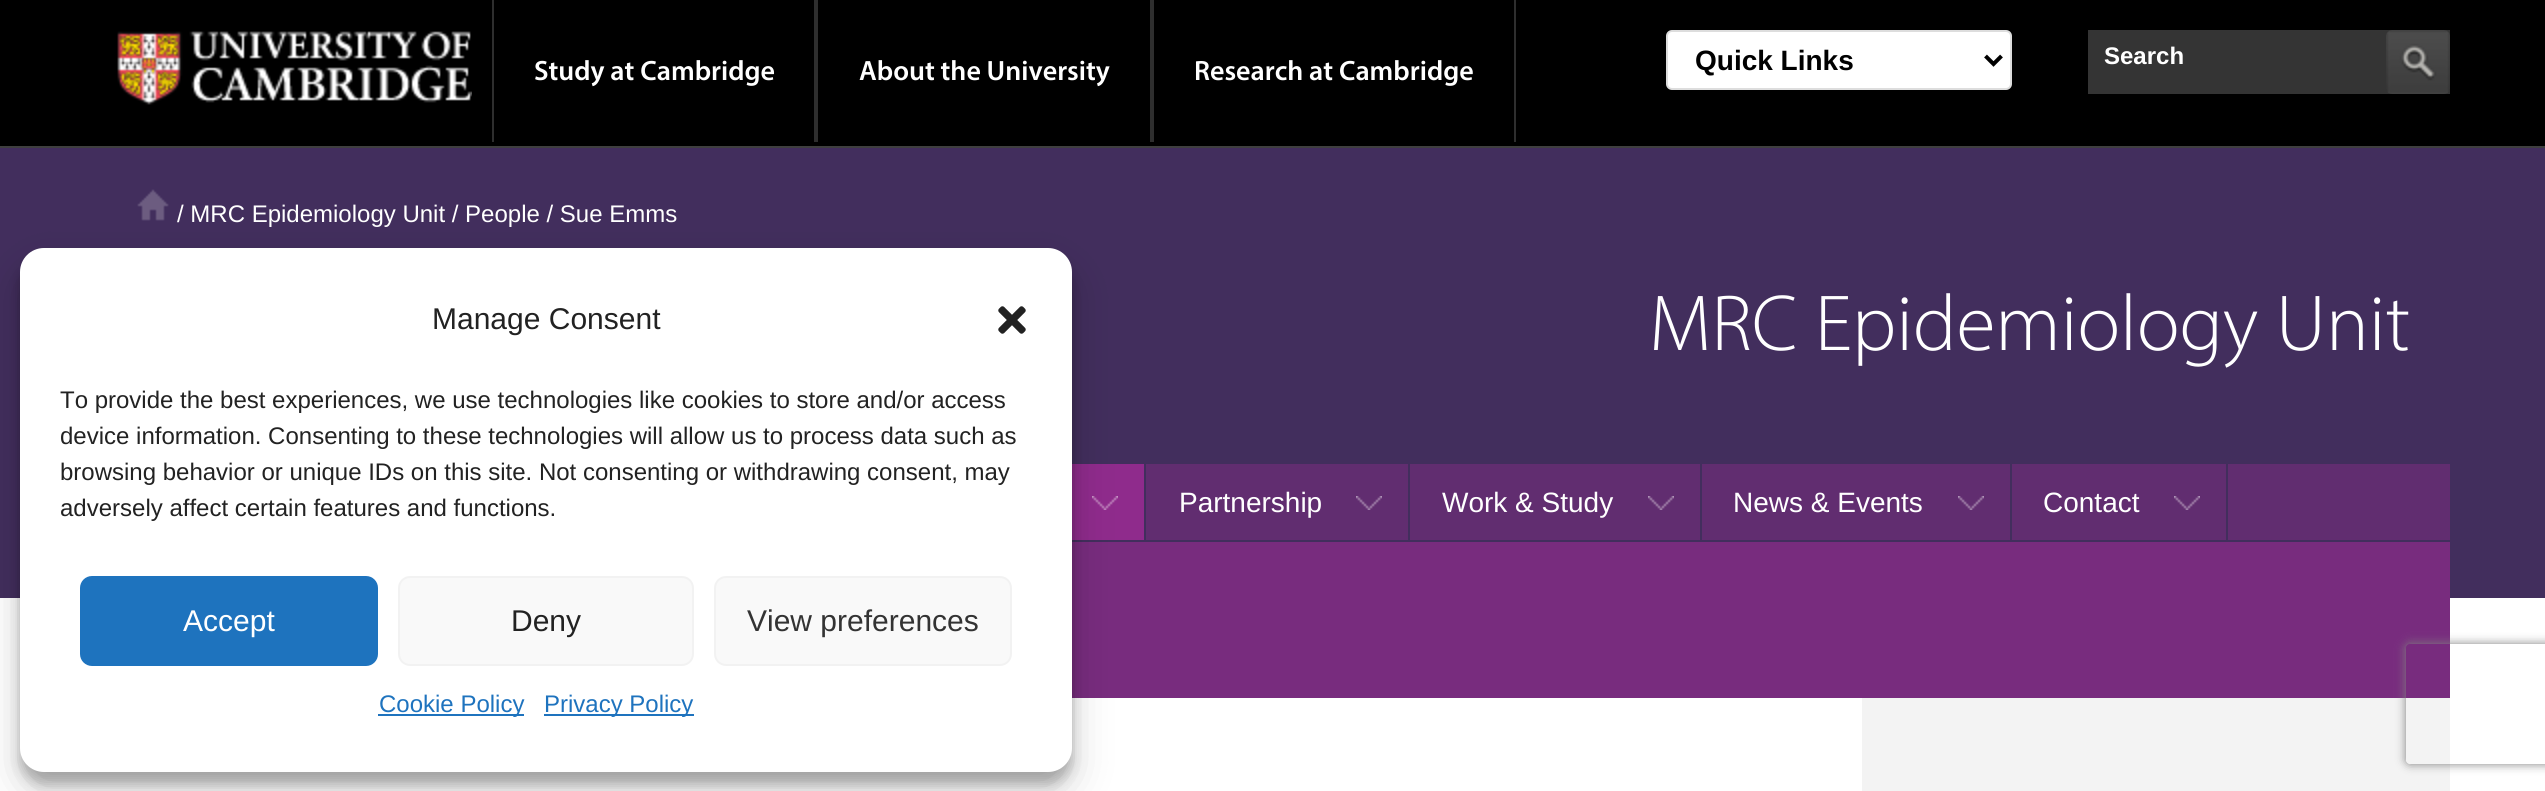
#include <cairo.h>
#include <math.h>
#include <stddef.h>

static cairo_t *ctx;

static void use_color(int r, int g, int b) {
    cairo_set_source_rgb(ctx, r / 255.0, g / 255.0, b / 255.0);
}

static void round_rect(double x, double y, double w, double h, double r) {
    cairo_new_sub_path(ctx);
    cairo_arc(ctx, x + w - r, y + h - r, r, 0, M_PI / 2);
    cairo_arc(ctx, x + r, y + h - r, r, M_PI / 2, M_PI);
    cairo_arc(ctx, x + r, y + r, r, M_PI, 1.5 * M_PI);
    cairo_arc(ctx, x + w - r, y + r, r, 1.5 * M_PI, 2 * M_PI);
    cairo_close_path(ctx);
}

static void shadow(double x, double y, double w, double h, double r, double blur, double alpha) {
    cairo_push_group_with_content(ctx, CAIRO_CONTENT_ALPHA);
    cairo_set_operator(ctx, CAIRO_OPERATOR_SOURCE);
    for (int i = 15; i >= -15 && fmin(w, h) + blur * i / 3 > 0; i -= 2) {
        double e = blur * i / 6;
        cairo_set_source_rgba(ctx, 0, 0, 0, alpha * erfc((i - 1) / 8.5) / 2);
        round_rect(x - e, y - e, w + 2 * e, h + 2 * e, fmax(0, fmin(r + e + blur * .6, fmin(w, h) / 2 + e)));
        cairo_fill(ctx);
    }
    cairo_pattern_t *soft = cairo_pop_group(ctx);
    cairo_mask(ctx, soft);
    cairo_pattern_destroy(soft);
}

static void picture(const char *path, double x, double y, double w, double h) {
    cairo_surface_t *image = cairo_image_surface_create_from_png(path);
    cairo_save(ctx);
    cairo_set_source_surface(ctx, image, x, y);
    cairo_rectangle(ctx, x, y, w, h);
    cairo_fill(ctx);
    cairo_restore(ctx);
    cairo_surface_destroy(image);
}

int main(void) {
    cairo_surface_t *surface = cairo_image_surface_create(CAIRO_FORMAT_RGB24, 2545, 791);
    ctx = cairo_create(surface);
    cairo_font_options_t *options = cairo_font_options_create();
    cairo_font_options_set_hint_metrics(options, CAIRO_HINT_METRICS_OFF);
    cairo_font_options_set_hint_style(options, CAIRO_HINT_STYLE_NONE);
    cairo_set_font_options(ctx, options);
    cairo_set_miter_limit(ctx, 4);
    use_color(255, 255, 255);
    cairo_paint(ctx);
    use_color(0, 0, 0);
    cairo_rectangle(ctx, 0, 0, 2545, 146);
    cairo_fill(ctx);
    picture("img1.png", 117, 31, 355, 74);
    use_color(46, 46, 46);
    cairo_rectangle(ctx, 814, 0, 4, 142);
    cairo_fill(ctx);
    cairo_rectangle(ctx, 492, 0, 2, 142);
    cairo_fill(ctx);
    cairo_select_font_face(ctx, "Myriad SemiBold", CAIRO_FONT_SLANT_NORMAL, CAIRO_FONT_WEIGHT_NORMAL);
    cairo_set_font_size(ctx, 28);
    use_color(255, 255, 255);
    cairo_move_to(ctx, 534, 80);
    cairo_show_text(ctx, "Study at Cambridge");
    use_color(46, 46, 46);
    cairo_rectangle(ctx, 1150, 0, 4, 142);
    cairo_fill(ctx);
    use_color(255, 255, 255);
    cairo_move_to(ctx, 859, 80);
    cairo_show_text(ctx, "About the University");
    use_color(46, 46, 46);
    cairo_rectangle(ctx, 1514, 0, 2, 142);
    cairo_fill(ctx);
    use_color(255, 255, 255);
    cairo_move_to(ctx, 1194, 80);
    cairo_show_text(ctx, "Research at Cambridge");
    round_rect(1667, 31, 344, 58, 5);
    cairo_fill_preserve(ctx);
    use_color(221, 221, 221);
    cairo_stroke(ctx);
    cairo_new_path(ctx);
    cairo_move_to(ctx, 1985.5, 56);
    cairo_line_to(ctx, 1993.5, 64);
    cairo_line_to(ctx, 2001.5, 56);
    use_color(0, 0, 0);
    cairo_set_line_width(ctx, 4);
    cairo_stroke(ctx);
    cairo_select_font_face(ctx, "Liberation Sans", CAIRO_FONT_SLANT_NORMAL, CAIRO_FONT_WEIGHT_BOLD);
    cairo_move_to(ctx, 1695, 70);
    cairo_show_text(ctx, "Quick Links");
    use_color(52, 52, 52);
    cairo_rectangle(ctx, 2088, 30, 362, 64);
    cairo_fill(ctx);
    cairo_set_font_size(ctx, 24);
    use_color(255, 255, 255);
    cairo_move_to(ctx, 2104, 64);
    cairo_show_text(ctx, "Search");
    picture("img2.png", 2386, 30, 64, 64);
    use_color(63, 63, 63);
    cairo_rectangle(ctx, 0, 146, 2545, 2);
    cairo_fill(ctx);
    use_color(66, 46, 93);
    cairo_rectangle(ctx, 0, 148, 2545, 450);
    cairo_fill(ctx);
    picture("img3.png", 137, 189, 32, 32);
    cairo_select_font_face(ctx, "Liberation Sans", CAIRO_FONT_SLANT_NORMAL, CAIRO_FONT_WEIGHT_NORMAL);
    use_color(255, 255, 255);
    cairo_move_to(ctx, 177, 222);
    cairo_show_text(ctx, "/ MRC Epidemiology Unit / People / Sue Emms");
    cairo_select_font_face(ctx, "Myriad Light", CAIRO_FONT_SLANT_NORMAL, CAIRO_FONT_WEIGHT_NORMAL);
    cairo_set_font_size(ctx, 80);
    cairo_move_to(ctx, 1649, 350);
    cairo_show_text(ctx, "MRC Epidemiology Unit");
    use_color(97, 45, 112);
    cairo_rectangle(ctx, 1146, 464, 1304, 76);
    cairo_fill(ctx);
    use_color(143, 43, 140);
    cairo_rectangle(ctx, 1072, 464, 72, 76);
    cairo_fill(ctx);
    picture("img4.png", 1092, 496, 26, 14);
    use_color(66, 46, 93);
    cairo_rectangle(ctx, 1408, 464, 2, 76);
    cairo_fill(ctx);
    cairo_select_font_face(ctx, "Liberation Sans", CAIRO_FONT_SLANT_NORMAL, CAIRO_FONT_WEIGHT_NORMAL);
    cairo_set_font_size(ctx, 28);
    use_color(255, 255, 255);
    cairo_move_to(ctx, 1179, 512);
    cairo_show_text(ctx, "Partnership");
    picture("img5.png", 1356, 496, 26, 14);
    use_color(66, 46, 93);
    cairo_rectangle(ctx, 1700, 464, 2, 76);
    cairo_fill(ctx);
    use_color(255, 255, 255);
    cairo_move_to(ctx, 1442, 512);
    cairo_show_text(ctx, "Work & Study");
    picture("img5.png", 1648, 496, 26, 14);
    use_color(66, 46, 93);
    cairo_rectangle(ctx, 2010, 464, 2, 76);
    cairo_fill(ctx);
    use_color(255, 255, 255);
    cairo_move_to(ctx, 1733, 512);
    cairo_show_text(ctx, "News & Events");
    picture("img5.png", 1958, 496, 26, 14);
    use_color(66, 46, 93);
    cairo_rectangle(ctx, 2226, 464, 2, 76);
    cairo_fill(ctx);
    use_color(255, 255, 255);
    cairo_move_to(ctx, 2043, 512);
    cairo_show_text(ctx, "Contact");
    picture("img5.png", 2174, 496, 26, 14);
    use_color(120, 44, 126);
    cairo_rectangle(ctx, 1072, 542, 1378, 156);
    cairo_fill(ctx);
    use_color(243, 243, 243);
    cairo_rectangle(ctx, 1862, 698, 588, 93);
    cairo_fill(ctx);
    use_color(0, 0, 0);
    shadow(20, 260, 1052, 524, 24, 6, 0.23);
    shadow(20, 268, 1052, 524, 24, 20, 0.19);
    use_color(255, 255, 255);
    round_rect(20, 248, 1052, 524, 24);
    cairo_fill(ctx);
    cairo_set_font_size(ctx, 30);
    use_color(34, 34, 34);
    cairo_move_to(ctx, 432, 329);
    cairo_show_text(ctx, "Manage Consent");
    picture("img6.png", 998, 306, 28, 28);
    cairo_set_font_size(ctx, 24);
    cairo_move_to(ctx, 60, 408);
    cairo_show_text(ctx, "To provide the best experiences, we use technologies like cookies to store and/or access");
    cairo_move_to(ctx, 60, 444);
    cairo_show_text(ctx, "device information. Consenting to these technologies will allow us to process data such as");
    cairo_move_to(ctx, 60, 480);
    cairo_show_text(ctx, "browsing behavior or unique IDs on this site. Not consenting or withdrawing consent, may");
    cairo_move_to(ctx, 60, 516);
    cairo_show_text(ctx, "adversely affect certain features and functions.");
    use_color(30, 115, 190);
    round_rect(81, 577, 296, 88, 11);
    cairo_fill_preserve(ctx);
    cairo_set_line_width(ctx, 2);
    cairo_stroke(ctx);
    cairo_set_font_size(ctx, 30);
    use_color(255, 255, 255);
    cairo_move_to(ctx, 183, 631);
    cairo_show_text(ctx, "Accept");
    use_color(249, 249, 249);
    round_rect(399, 577, 294, 88, 11);
    cairo_fill_preserve(ctx);
    use_color(242, 242, 242);
    cairo_stroke(ctx);
    use_color(34, 34, 34);
    cairo_move_to(ctx, 511, 631);
    cairo_show_text(ctx, "Deny");
    use_color(249, 249, 249);
    round_rect(715, 577, 296, 88, 11);
    cairo_fill_preserve(ctx);
    use_color(242, 242, 242);
    cairo_stroke(ctx);
    use_color(51, 51, 51);
    cairo_move_to(ctx, 747, 631);
    cairo_show_text(ctx, "View preferences");
    use_color(30, 115, 190);
    cairo_rectangle(ctx, 378, 714, 146, 2);
    cairo_fill(ctx);
    cairo_set_font_size(ctx, 24);
    cairo_move_to(ctx, 379, 712);
    cairo_show_text(ctx, "Cookie Policy");
    cairo_rectangle(ctx, 544, 714, 150, 2);
    cairo_fill(ctx);
    cairo_move_to(ctx, 544, 712);
    cairo_show_text(ctx, "Privacy Policy");
    cairo_save(ctx);
    cairo_set_fill_rule(ctx, CAIRO_FILL_RULE_EVEN_ODD);
    cairo_new_path(ctx);
    cairo_move_to(ctx, 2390, 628);
    cairo_line_to(ctx, 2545, 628);
    cairo_line_to(ctx, 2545, 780);
    cairo_line_to(ctx, 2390, 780);
    cairo_close_path(ctx);
    cairo_move_to(ctx, 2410, 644);
    cairo_line_to(ctx, 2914, 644);
    cairo_curve_to(ctx, 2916, 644, 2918, 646, 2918, 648);
    cairo_line_to(ctx, 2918, 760);
    cairo_curve_to(ctx, 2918, 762, 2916, 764, 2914, 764);
    cairo_line_to(ctx, 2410, 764);
    cairo_curve_to(ctx, 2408, 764, 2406, 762, 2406, 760);
    cairo_line_to(ctx, 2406, 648);
    cairo_curve_to(ctx, 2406, 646, 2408, 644, 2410, 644);
    cairo_close_path(ctx);
    cairo_clip(ctx);
    use_color(128, 128, 128);
    shadow(2406, 644, 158, 120, 4, 5, 1);
    cairo_restore(ctx);
    cairo_surface_write_to_png(surface, "result.png");
    cairo_font_options_destroy(options);
    cairo_destroy(ctx);
    cairo_surface_destroy(surface);
    return 0;
}
